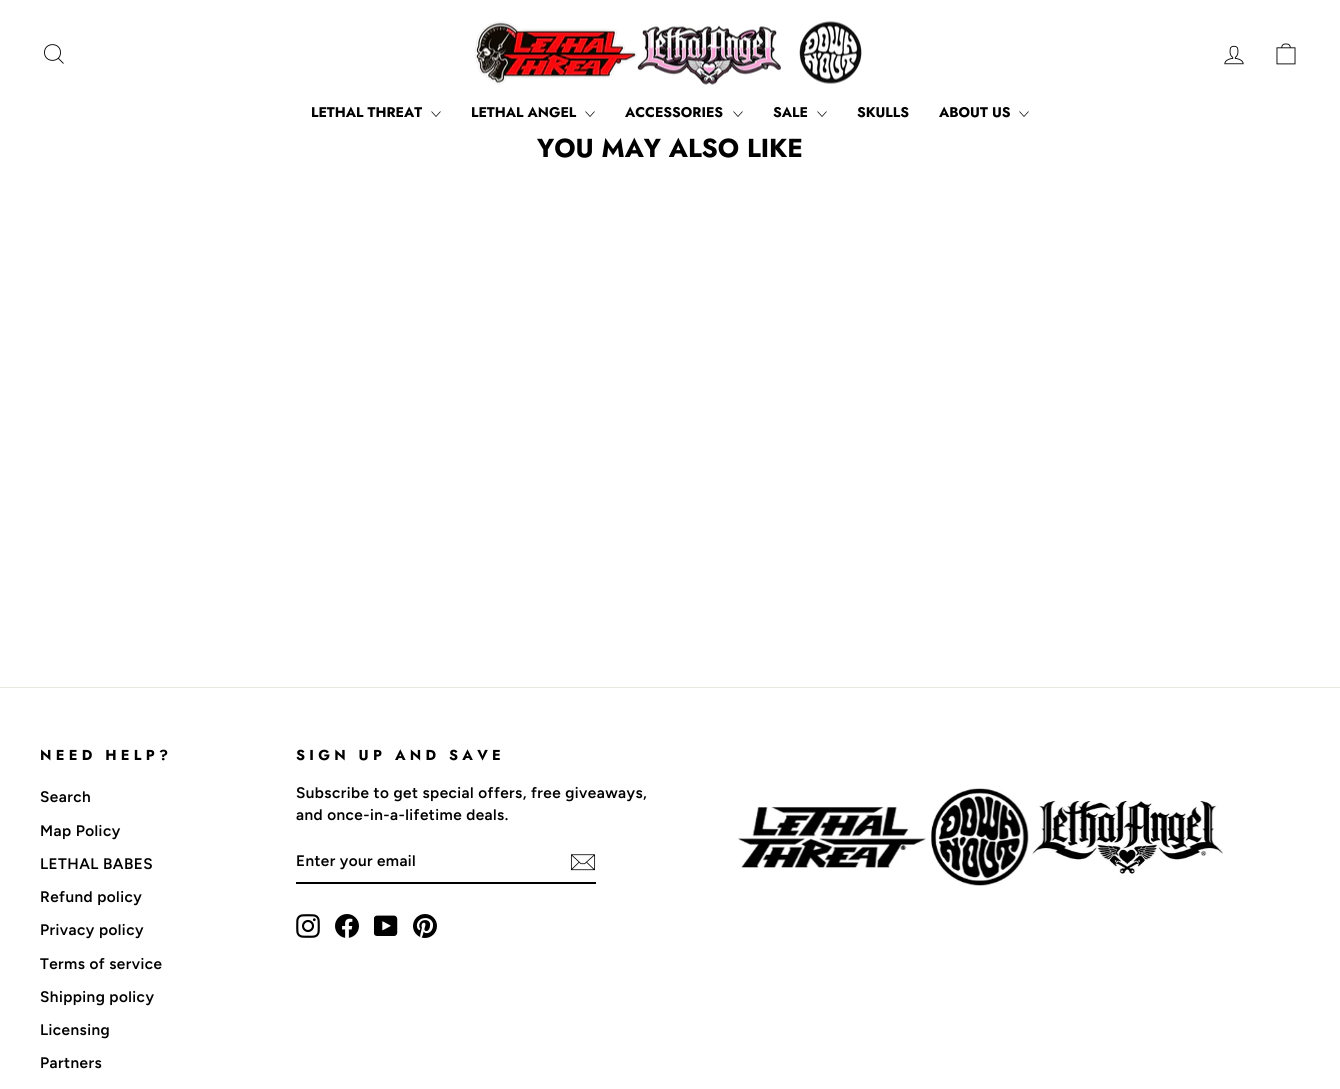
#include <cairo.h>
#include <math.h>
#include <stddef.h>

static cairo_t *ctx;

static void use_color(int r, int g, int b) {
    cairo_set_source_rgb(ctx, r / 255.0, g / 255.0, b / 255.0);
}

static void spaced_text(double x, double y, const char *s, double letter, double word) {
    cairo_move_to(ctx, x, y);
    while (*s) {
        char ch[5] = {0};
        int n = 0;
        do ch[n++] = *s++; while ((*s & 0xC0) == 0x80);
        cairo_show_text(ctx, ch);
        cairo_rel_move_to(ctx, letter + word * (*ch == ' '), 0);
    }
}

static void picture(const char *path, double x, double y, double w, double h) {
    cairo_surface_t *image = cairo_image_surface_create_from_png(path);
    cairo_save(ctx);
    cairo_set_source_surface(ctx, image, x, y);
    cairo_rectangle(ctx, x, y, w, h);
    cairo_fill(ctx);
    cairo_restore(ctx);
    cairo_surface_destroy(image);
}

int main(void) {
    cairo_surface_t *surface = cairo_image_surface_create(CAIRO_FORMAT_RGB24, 1340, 1089);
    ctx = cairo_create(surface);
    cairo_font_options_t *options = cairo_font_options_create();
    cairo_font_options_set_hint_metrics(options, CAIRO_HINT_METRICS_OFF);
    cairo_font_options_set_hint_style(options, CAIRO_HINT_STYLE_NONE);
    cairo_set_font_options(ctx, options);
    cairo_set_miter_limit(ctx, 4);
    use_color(255, 255, 255);
    cairo_paint(ctx);
    cairo_new_path(ctx);
    cairo_move_to(ctx, 60.5, 52.5);
    cairo_curve_to(ctx, 60.5, 63, 44.5, 63, 44.5, 52.5);
    cairo_curve_to(ctx, 44.5, 42, 60.5, 42, 60.5, 52.5);
    cairo_close_path(ctx);
    cairo_move_to(ctx, 63.5, 63.5);
    cairo_line_to(ctx, 58.5, 58.5);
    use_color(0, 0, 0);
    cairo_set_line_width(ctx, 0.9);
    cairo_stroke(ctx);
    picture("img1.png", 474, 21, 388, 64);
    picture("img2.png", 1224, 45, 20, 20);
    picture("img3.png", 1276, 43, 20, 22);
    cairo_select_font_face(ctx, "Jost", CAIRO_FONT_SLANT_NORMAL, CAIRO_FONT_WEIGHT_BOLD);
    cairo_set_font_size(ctx, 14);
    cairo_move_to(ctx, 311, 117);
    cairo_show_text(ctx, "LETHAL THREAT");
    cairo_new_path(ctx);
    cairo_move_to(ctx, 431.5, 111.5);
    cairo_line_to(ctx, 436, 116.5);
    cairo_line_to(ctx, 440.5, 111.5);
    cairo_set_line_width(ctx, 0.7);
    cairo_stroke(ctx);
    cairo_move_to(ctx, 471, 117);
    cairo_show_text(ctx, "LETHAL ANGEL");
    cairo_new_path(ctx);
    cairo_move_to(ctx, 585.5, 111.5);
    cairo_line_to(ctx, 590, 116.5);
    cairo_line_to(ctx, 594.5, 111.5);
    cairo_stroke(ctx);
    cairo_move_to(ctx, 625, 117);
    cairo_show_text(ctx, "ACCESSORIES");
    cairo_new_path(ctx);
    cairo_move_to(ctx, 733.5, 111.5);
    cairo_line_to(ctx, 738, 116.5);
    cairo_line_to(ctx, 742.5, 111.5);
    cairo_stroke(ctx);
    cairo_move_to(ctx, 773, 117);
    cairo_show_text(ctx, "SALE");
    cairo_new_path(ctx);
    cairo_move_to(ctx, 817.5, 111.5);
    cairo_line_to(ctx, 822, 116.5);
    cairo_line_to(ctx, 826.5, 111.5);
    cairo_stroke(ctx);
    cairo_move_to(ctx, 857, 117);
    cairo_show_text(ctx, "SKULLS");
    cairo_move_to(ctx, 939, 117);
    cairo_show_text(ctx, "ABOUT US");
    cairo_new_path(ctx);
    cairo_move_to(ctx, 1019.5, 111.5);
    cairo_line_to(ctx, 1024, 116.5);
    cairo_line_to(ctx, 1028.5, 111.5);
    cairo_stroke(ctx);
    cairo_set_font_size(ctx, 26);
    cairo_move_to(ctx, 537, 157);
    cairo_show_text(ctx, "YOU MAY ALSO LIKE");
    use_color(232, 232, 225);
    cairo_rectangle(ctx, 0, 687, 1340, 1);
    cairo_fill(ctx);
    cairo_set_font_size(ctx, 14.4);
    use_color(0, 0, 0);
    spaced_text(40, 760, "NEED HELP?", 4.3, 0);
    cairo_select_font_face(ctx, "Figtree SemiBold", CAIRO_FONT_SLANT_NORMAL, CAIRO_FONT_WEIGHT_NORMAL);
    cairo_set_font_size(ctx, 15.3);
    spaced_text(40, 802, "Search", 0.45, 0);
    spaced_text(40, 836, "Map Policy", 0.45, 0);
    spaced_text(40, 869, "LETHAL BABES", 0.45, 0);
    spaced_text(40, 902, "Refund policy", 0.45, 0);
    spaced_text(40, 935, "Privacy policy", 0.45, 0);
    spaced_text(40, 969, "Terms of service", 0.45, 0);
    spaced_text(40, 1002, "Shipping policy", 0.45, 0);
    spaced_text(40, 1035, "Licensing", 0.45, 0);
    spaced_text(40, 1068, "Partners", 0.45, 0);
    cairo_select_font_face(ctx, "Jost", CAIRO_FONT_SLANT_NORMAL, CAIRO_FONT_WEIGHT_BOLD);
    cairo_set_font_size(ctx, 14.4);
    spaced_text(296, 760, "SIGN UP AND SAVE", 4.3, 0);
    cairo_select_font_face(ctx, "Figtree SemiBold", CAIRO_FONT_SLANT_NORMAL, CAIRO_FONT_WEIGHT_NORMAL);
    cairo_set_font_size(ctx, 15.3);
    spaced_text(296, 798, "Subscribe to get special offers, free giveaways,", 0.45, 0);
    spaced_text(296, 820, "and once-in-a-lifetime deals.", 0.45, 0);
    cairo_rectangle(ctx, 296, 882, 300, 2);
    cairo_fill(ctx);
    spaced_text(296, 866, "Enter your email", 0.4, 0);
    picture("img4.png", 570, 854, 26, 17);
    picture("img5.png", 296, 914, 24, 24);
    picture("img6.png", 335, 914, 24, 24);
    picture("img7.png", 374, 915, 24, 21);
    picture("img8.png", 413, 914, 24, 24);
    picture("img9.png", 738, 788, 485, 98);
    cairo_surface_write_to_png(surface, "result.png");
    cairo_font_options_destroy(options);
    cairo_destroy(ctx);
    cairo_surface_destroy(surface);
    return 0;
}
